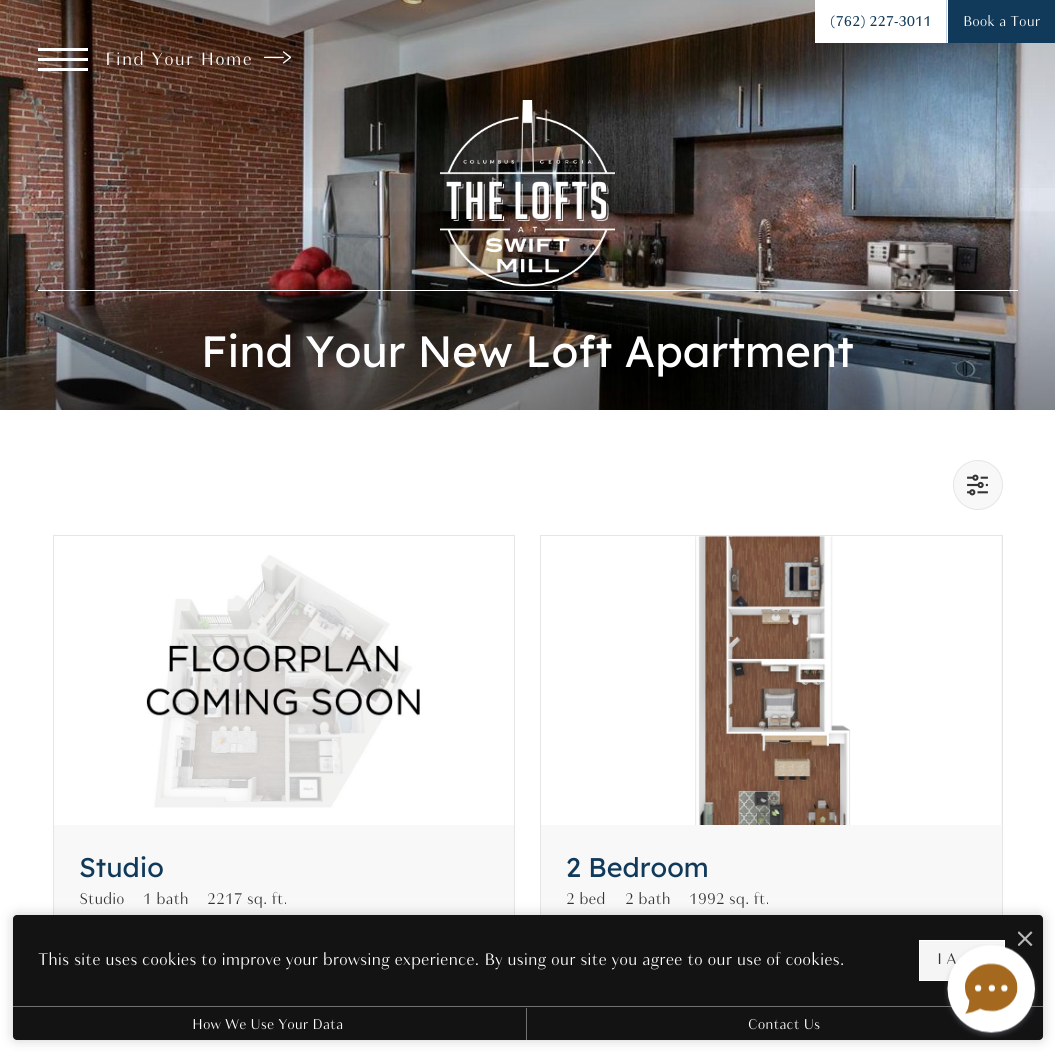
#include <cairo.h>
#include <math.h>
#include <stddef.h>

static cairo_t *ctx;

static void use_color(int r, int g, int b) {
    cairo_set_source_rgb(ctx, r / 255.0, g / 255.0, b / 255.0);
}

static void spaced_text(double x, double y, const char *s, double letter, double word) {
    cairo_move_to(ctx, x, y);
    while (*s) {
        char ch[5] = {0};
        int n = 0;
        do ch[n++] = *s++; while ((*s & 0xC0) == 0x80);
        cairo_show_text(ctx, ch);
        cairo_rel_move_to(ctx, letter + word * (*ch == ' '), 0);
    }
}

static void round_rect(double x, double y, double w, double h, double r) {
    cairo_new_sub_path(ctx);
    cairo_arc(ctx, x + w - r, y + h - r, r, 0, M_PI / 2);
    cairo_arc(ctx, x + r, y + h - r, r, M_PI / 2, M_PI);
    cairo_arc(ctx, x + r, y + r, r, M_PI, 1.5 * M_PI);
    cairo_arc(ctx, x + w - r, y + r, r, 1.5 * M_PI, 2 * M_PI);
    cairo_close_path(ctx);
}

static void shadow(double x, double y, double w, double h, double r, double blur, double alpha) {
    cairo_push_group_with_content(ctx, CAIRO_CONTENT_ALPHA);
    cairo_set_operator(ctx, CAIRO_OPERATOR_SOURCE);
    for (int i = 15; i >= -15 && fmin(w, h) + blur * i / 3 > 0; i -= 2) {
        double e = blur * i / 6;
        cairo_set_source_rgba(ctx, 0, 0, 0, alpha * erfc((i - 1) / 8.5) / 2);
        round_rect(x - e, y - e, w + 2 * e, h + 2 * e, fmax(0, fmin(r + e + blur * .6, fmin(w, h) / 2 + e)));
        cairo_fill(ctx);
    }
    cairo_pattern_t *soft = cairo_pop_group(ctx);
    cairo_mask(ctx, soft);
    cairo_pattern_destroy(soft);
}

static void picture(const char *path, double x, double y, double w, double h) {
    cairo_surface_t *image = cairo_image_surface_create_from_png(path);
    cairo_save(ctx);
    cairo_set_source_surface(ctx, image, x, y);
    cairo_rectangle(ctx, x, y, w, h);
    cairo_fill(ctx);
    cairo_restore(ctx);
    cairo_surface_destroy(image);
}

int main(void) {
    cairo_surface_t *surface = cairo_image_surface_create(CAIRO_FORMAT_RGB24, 1055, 1052);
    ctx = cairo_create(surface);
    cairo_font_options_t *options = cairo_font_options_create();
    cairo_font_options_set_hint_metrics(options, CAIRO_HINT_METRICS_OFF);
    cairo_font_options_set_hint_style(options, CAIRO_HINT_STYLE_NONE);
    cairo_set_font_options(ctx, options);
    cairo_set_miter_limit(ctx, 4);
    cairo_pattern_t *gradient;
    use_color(255, 255, 255);
    cairo_paint(ctx);
    picture("img4.png", 0, 0, 1016, 410);
    picture("img3.png", 1016, 43, 39, 367);
    gradient = cairo_pattern_create_linear(528, 0, 528, 211);
    cairo_pattern_add_color_stop_rgba(gradient, 0, 0, 0, 0, 0.2);
    cairo_pattern_add_color_stop_rgba(gradient, 1, 0, 0, 0, 0);
    cairo_set_source(ctx, gradient);
    cairo_pattern_destroy(gradient);
    cairo_rectangle(ctx, 0, 0, 1055, 188);
    cairo_fill(ctx);
    use_color(255, 255, 255);
    cairo_rectangle(ctx, 815, 0, 133, 43);
    cairo_fill(ctx);
    use_color(193, 213, 230);
    cairo_rectangle(ctx, 946, 0, 1, 43);
    cairo_fill(ctx);
    cairo_select_font_face(ctx, "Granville", CAIRO_FONT_SLANT_NORMAL, CAIRO_FONT_WEIGHT_NORMAL);
    cairo_set_font_size(ctx, 15);
    use_color(17, 58, 90);
    cairo_move_to(ctx, 830, 26);
    cairo_show_text(ctx, "(762) 227-3011");
    cairo_rectangle(ctx, 948, 0, 107, 43);
    cairo_fill(ctx);
    cairo_select_font_face(ctx, "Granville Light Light", CAIRO_FONT_SLANT_NORMAL, CAIRO_FONT_WEIGHT_NORMAL);
    use_color(255, 255, 255);
    cairo_move_to(ctx, 963, 26);
    cairo_show_text(ctx, "Book a Tour");
    cairo_rectangle(ctx, 38, 48, 50, 3);
    cairo_fill(ctx);
    cairo_rectangle(ctx, 38, 58, 50, 3);
    cairo_fill(ctx);
    cairo_rectangle(ctx, 38, 68, 50, 3);
    cairo_fill(ctx);
    cairo_set_font_size(ctx, 18.75);
    spaced_text(105, 65, "Find Your Home", 1.25, 0);
    picture("img1.png", 264, 51, 27, 13);
    gradient = cairo_pattern_create_linear(528, 200, 528, 410);
    cairo_pattern_add_color_stop_rgba(gradient, 0, 0, 0, 0, 0);
    cairo_pattern_add_color_stop_rgba(gradient, 1, 0, 0, 0, 0.4);
    cairo_set_source(ctx, gradient);
    cairo_pattern_destroy(gradient);
    cairo_rectangle(ctx, 0, 211, 1055, 199);
    cairo_fill(ctx);
    picture("img2.png", 440, 100, 175, 187);
    use_color(255, 255, 255);
    cairo_rectangle(ctx, 38, 290, 980, 1);
    cairo_fill(ctx);
    cairo_select_font_face(ctx, "Lexend", CAIRO_FONT_SLANT_NORMAL, CAIRO_FONT_WEIGHT_NORMAL);
    cairo_set_font_size(ctx, 43.75);
    cairo_move_to(ctx, 201, 367);
    cairo_show_text(ctx, "Find Your New Loft Apartment");
    use_color(248, 248, 248);
    cairo_new_path(ctx);
    cairo_arc(ctx, 978, 485, 24.5, 0, 2 * M_PI);
    cairo_fill_preserve(ctx);
    use_color(229, 229, 229);
    cairo_set_line_width(ctx, 1);
    cairo_stroke(ctx);
    picture("img5.png", 967, 474, 21, 22);
    use_color(248, 248, 248);
    cairo_rectangle(ctx, 54, 825, 460, 90);
    cairo_fill(ctx);
    cairo_rectangle(ctx, 53.5, 535.5, 461, 442);
    use_color(229, 229, 229);
    cairo_stroke(ctx);
    picture("img6.png", 146, 555, 274, 253);
    cairo_set_font_size(ctx, 27);
    use_color(17, 58, 90);
    cairo_move_to(ctx, 79, 877);
    cairo_show_text(ctx, "Studio");
    cairo_select_font_face(ctx, "Granville Light Light", CAIRO_FONT_SLANT_NORMAL, CAIRO_FONT_WEIGHT_NORMAL);
    cairo_set_font_size(ctx, 16.25);
    use_color(51, 51, 51);
    cairo_move_to(ctx, 79, 904);
    cairo_show_text(ctx, "Studio");
    cairo_move_to(ctx, 143, 904);
    cairo_show_text(ctx, "1 bath");
    cairo_move_to(ctx, 207, 904);
    cairo_show_text(ctx, "2217 sq. ft.");
    use_color(248, 248, 248);
    cairo_rectangle(ctx, 541, 536, 461, 379);
    cairo_fill(ctx);
    cairo_rectangle(ctx, 540.5, 535.5, 462, 442);
    use_color(229, 229, 229);
    cairo_stroke(ctx);
    use_color(255, 255, 255);
    cairo_rectangle(ctx, 541, 536, 460, 289);
    cairo_fill(ctx);
    picture("img7.png", 695, 536, 156, 289);
    cairo_select_font_face(ctx, "Lexend", CAIRO_FONT_SLANT_NORMAL, CAIRO_FONT_WEIGHT_NORMAL);
    cairo_set_font_size(ctx, 27);
    use_color(17, 58, 90);
    cairo_move_to(ctx, 566, 877);
    cairo_show_text(ctx, "2 Bedroom");
    cairo_select_font_face(ctx, "Granville Light Light", CAIRO_FONT_SLANT_NORMAL, CAIRO_FONT_WEIGHT_NORMAL);
    cairo_set_font_size(ctx, 16.25);
    use_color(51, 51, 51);
    cairo_move_to(ctx, 566, 904);
    cairo_show_text(ctx, "2 bed");
    cairo_move_to(ctx, 625, 904);
    cairo_show_text(ctx, "2 bath");
    cairo_move_to(ctx, 689, 904);
    cairo_show_text(ctx, "1992 sq. ft.");
    use_color(0, 0, 0);
    shadow(13, 915, 1030, 125, 4, 6, 0.2);
    use_color(19, 19, 19);
    round_rect(13, 915, 1030, 125, 4);
    cairo_fill(ctx);
    picture("img8.png", 1018, 931, 15, 15);
    cairo_set_font_size(ctx, 17.5);
    use_color(255, 255, 255);
    cairo_move_to(ctx, 38, 965);
    cairo_show_text(ctx, "This site uses cookies to improve your browsing experience. By using our site you agree to our use of cookies.");
    use_color(245, 245, 245);
    cairo_rectangle(ctx, 919.5, 940.5, 85, 40);
    cairo_fill_preserve(ctx);
    use_color(255, 255, 255);
    cairo_stroke(ctx);
    cairo_set_font_size(ctx, 16.25);
    use_color(51, 51, 51);
    cairo_move_to(ctx, 937, 964);
    cairo_show_text(ctx, "I A");
    use_color(113, 113, 113);
    cairo_rectangle(ctx, 13, 1006, 1030, 1);
    cairo_fill(ctx);
    cairo_rectangle(ctx, 526, 1008, 1, 32);
    cairo_fill(ctx);
    cairo_set_font_size(ctx, 15);
    use_color(255, 255, 255);
    cairo_move_to(ctx, 192, 1029);
    cairo_show_text(ctx, "How We Use Your Data");
    cairo_move_to(ctx, 748, 1029);
    cairo_show_text(ctx, "Contact Us");
    picture("img9.png", 944, 944, 94, 94);
    cairo_surface_write_to_png(surface, "result.png");
    cairo_font_options_destroy(options);
    cairo_destroy(ctx);
    cairo_surface_destroy(surface);
    return 0;
}
